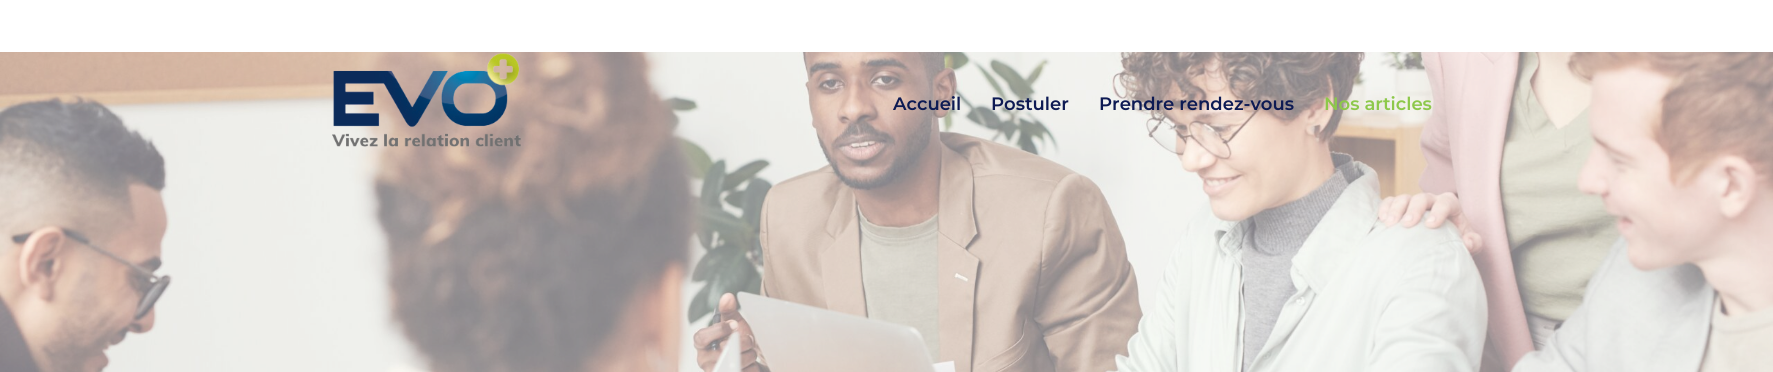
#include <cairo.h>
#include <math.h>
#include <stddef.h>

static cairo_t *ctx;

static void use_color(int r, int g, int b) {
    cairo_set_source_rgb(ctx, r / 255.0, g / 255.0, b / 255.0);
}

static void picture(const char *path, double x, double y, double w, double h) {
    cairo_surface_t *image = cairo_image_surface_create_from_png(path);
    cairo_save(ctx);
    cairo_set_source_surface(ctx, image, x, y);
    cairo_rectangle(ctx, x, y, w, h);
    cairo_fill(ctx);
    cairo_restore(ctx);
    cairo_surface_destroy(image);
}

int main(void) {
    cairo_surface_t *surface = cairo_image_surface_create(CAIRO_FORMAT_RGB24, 1773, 372);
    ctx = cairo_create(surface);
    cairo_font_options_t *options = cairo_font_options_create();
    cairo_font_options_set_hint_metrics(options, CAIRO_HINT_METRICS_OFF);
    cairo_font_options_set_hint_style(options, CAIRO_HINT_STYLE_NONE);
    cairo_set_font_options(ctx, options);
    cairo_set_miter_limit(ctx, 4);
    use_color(255, 255, 255);
    cairo_paint(ctx);
    picture("img1.png", 0, 52, 1773, 320);
    picture("img2.png", 332, 53, 189, 94);
    cairo_select_font_face(ctx, "Montserrat SemiBold", CAIRO_FONT_SLANT_NORMAL, CAIRO_FONT_WEIGHT_NORMAL);
    cairo_set_font_size(ctx, 18);
    use_color(13, 26, 83);
    cairo_move_to(ctx, 893, 110);
    cairo_show_text(ctx, "Accueil");
    cairo_move_to(ctx, 991, 110);
    cairo_show_text(ctx, "Postuler");
    cairo_move_to(ctx, 1099, 110);
    cairo_show_text(ctx, "Prendre rendez-vous");
    use_color(141, 200, 74);
    cairo_move_to(ctx, 1324, 110);
    cairo_show_text(ctx, "Nos articles");
    cairo_surface_write_to_png(surface, "result.png");
    cairo_font_options_destroy(options);
    cairo_destroy(ctx);
    cairo_surface_destroy(surface);
    return 0;
}
